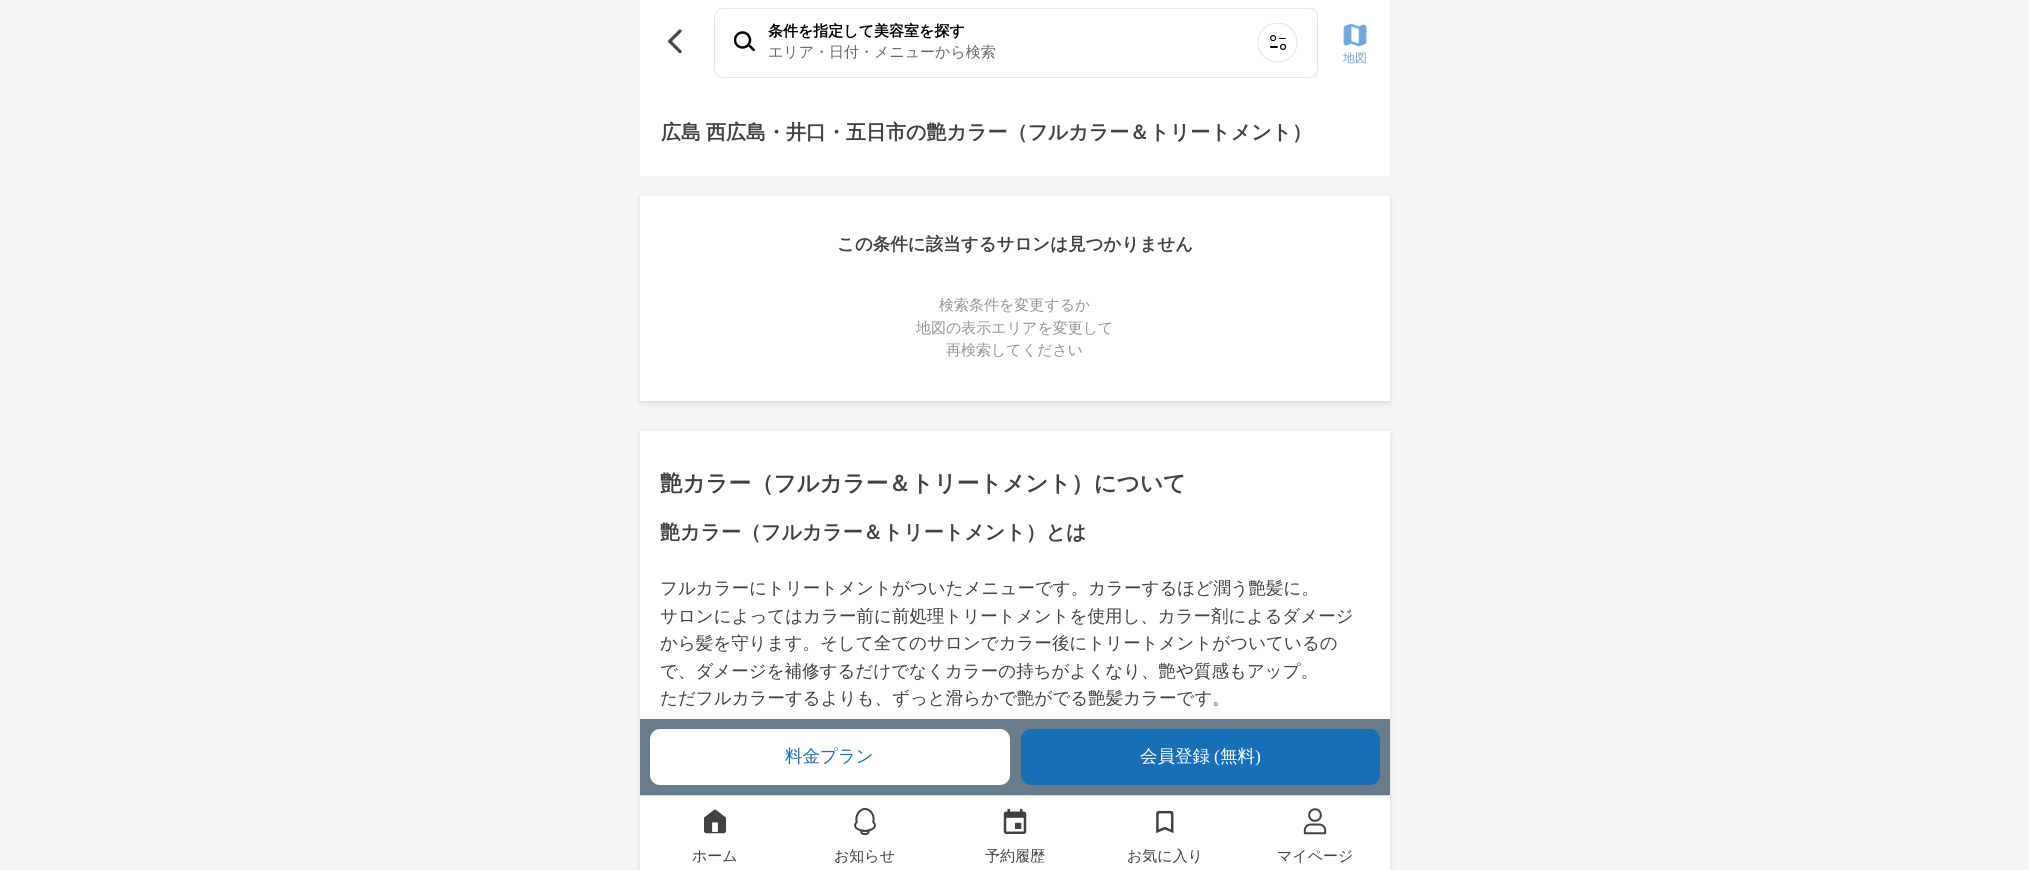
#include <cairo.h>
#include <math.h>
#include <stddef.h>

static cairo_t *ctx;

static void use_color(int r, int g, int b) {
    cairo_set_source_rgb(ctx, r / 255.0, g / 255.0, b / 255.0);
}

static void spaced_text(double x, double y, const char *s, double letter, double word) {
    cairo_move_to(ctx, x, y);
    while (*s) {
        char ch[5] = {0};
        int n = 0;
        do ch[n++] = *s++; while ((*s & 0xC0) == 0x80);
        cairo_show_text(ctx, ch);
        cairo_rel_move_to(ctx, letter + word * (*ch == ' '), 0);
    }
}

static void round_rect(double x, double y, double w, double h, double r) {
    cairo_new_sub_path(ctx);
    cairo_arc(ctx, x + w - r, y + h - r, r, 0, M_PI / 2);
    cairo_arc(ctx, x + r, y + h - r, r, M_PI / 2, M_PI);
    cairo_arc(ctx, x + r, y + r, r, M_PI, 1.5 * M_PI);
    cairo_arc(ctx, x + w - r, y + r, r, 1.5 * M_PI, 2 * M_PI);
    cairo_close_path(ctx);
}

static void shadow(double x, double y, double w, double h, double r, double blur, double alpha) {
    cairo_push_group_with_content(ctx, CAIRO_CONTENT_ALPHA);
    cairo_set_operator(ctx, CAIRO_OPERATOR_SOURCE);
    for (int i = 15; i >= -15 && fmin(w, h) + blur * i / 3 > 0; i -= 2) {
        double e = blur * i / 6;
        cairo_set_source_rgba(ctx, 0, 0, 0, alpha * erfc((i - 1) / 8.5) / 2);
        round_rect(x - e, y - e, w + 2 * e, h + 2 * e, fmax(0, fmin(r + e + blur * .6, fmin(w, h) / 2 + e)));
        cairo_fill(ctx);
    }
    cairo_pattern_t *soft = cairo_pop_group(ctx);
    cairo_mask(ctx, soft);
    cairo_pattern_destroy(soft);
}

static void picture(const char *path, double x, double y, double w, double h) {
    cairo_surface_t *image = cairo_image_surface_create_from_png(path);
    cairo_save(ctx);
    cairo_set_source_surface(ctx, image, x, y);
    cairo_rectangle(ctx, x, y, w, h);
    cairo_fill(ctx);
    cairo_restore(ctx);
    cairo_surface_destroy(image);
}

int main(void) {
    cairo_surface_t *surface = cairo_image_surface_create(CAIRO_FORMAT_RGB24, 2029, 870);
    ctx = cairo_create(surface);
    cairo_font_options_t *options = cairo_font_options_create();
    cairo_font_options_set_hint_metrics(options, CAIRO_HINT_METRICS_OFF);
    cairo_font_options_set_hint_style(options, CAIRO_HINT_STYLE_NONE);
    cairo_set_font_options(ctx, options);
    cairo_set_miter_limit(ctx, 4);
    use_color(245, 245, 245);
    cairo_paint(ctx);
    use_color(255, 255, 255);
    cairo_rectangle(ctx, 640, 0, 750, 176);
    cairo_fill(ctx);
    picture("img1.png", 667, 29, 15, 25);
    cairo_save(ctx);
    cairo_rectangle(ctx, 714, 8, 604, 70);
    cairo_clip(ctx);
    cairo_set_fill_rule(ctx, CAIRO_FILL_RULE_EVEN_ODD);
    cairo_new_path(ctx);
    cairo_move_to(ctx, 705, 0);
    cairo_line_to(ctx, 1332, 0);
    cairo_line_to(ctx, 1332, 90);
    cairo_line_to(ctx, 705, 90);
    cairo_close_path(ctx);
    cairo_move_to(ctx, 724, 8);
    cairo_line_to(ctx, 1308, 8);
    cairo_curve_to(ctx, 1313.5, 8, 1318, 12.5, 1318, 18);
    cairo_line_to(ctx, 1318, 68);
    cairo_curve_to(ctx, 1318, 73.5, 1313.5, 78, 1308, 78);
    cairo_line_to(ctx, 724, 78);
    cairo_curve_to(ctx, 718.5, 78, 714, 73.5, 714, 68);
    cairo_line_to(ctx, 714, 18);
    cairo_curve_to(ctx, 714, 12.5, 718.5, 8, 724, 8);
    cairo_close_path(ctx);
    cairo_clip(ctx);
    use_color(0, 0, 0);
    shadow(714, 6, 609, 75, 13, 2.5, 0.05);
    cairo_restore(ctx);
    round_rect(714.5, 8.5, 603, 69, 9.5);
    use_color(230, 230, 230);
    cairo_set_line_width(ctx, 1);
    cairo_stroke(ctx);
    picture("img2.png", 734, 31, 21, 21);
    cairo_select_font_face(ctx, "WenQuanYi Zen Hei", CAIRO_FONT_SLANT_NORMAL, CAIRO_FONT_WEIGHT_BOLD);
    cairo_set_font_size(ctx, 15);
    use_color(0, 0, 0);
    cairo_move_to(ctx, 768, 36);
    cairo_show_text(ctx, "条件を指定して美容室を探す");
    cairo_select_font_face(ctx, "WenQuanYi Zen Hei Medium", CAIRO_FONT_SLANT_NORMAL, CAIRO_FONT_WEIGHT_NORMAL);
    use_color(104, 104, 104);
    cairo_move_to(ctx, 768, 57);
    cairo_show_text(ctx, "エリア・日付・メニューから検索");
    cairo_save(ctx);
    cairo_rectangle(ctx, 1258, 23, 40, 40);
    cairo_clip(ctx);
    cairo_arc(ctx, 1277.5, 42.5, 19.5, 0, 2 * M_PI);
    use_color(230, 230, 230);
    cairo_set_line_width(ctx, 1.2);
    cairo_stroke(ctx);
    cairo_restore(ctx);
    cairo_arc(ctx, 1273.1, 38.1, 2.5, 0, 2 * M_PI);
    use_color(0, 0, 0);
    cairo_set_line_width(ctx, 1.2);
    cairo_stroke(ctx);
    round_rect(1279, 38, 7, 1, 0.5);
    cairo_fill(ctx);
    cairo_arc(ctx, 1283.1, 46.9, 2.5, 0, 2 * M_PI);
    cairo_stroke(ctx);
    round_rect(1270, 46, 8, 2, 1);
    cairo_fill(ctx);
    picture("img3.png", 1343, 23, 24, 24);
    cairo_set_font_size(ctx, 12);
    use_color(109, 168, 222);
    cairo_move_to(ctx, 1343, 62);
    cairo_show_text(ctx, "地図");
    cairo_select_font_face(ctx, "WenQuanYi Zen Hei", CAIRO_FONT_SLANT_NORMAL, CAIRO_FONT_WEIGHT_BOLD);
    cairo_set_font_size(ctx, 20);
    use_color(65, 64, 66);
    spaced_text(661, 139, "広島 西広島・井口・五日市の艶カラー（フルカラー＆トリートメント）", 0, -1);
    use_color(147, 149, 152);
    shadow(640, 198, 750, 205, 0, 2.5, 0.3);
    use_color(255, 255, 255);
    cairo_rectangle(ctx, 640, 196, 750, 205);
    cairo_fill(ctx);
    cairo_set_font_size(ctx, 17.5);
    use_color(65, 64, 66);
    cairo_move_to(ctx, 837, 250);
    cairo_show_text(ctx, "この条件に該当するサロンは見つかりません");
    cairo_select_font_face(ctx, "WenQuanYi Zen Hei Medium", CAIRO_FONT_SLANT_NORMAL, CAIRO_FONT_WEIGHT_NORMAL);
    cairo_set_font_size(ctx, 15);
    use_color(147, 149, 152);
    cairo_move_to(ctx, 939, 310);
    cairo_show_text(ctx, "検索条件を変更するか");
    cairo_move_to(ctx, 916, 333);
    cairo_show_text(ctx, "地図の表示エリアを変更して");
    cairo_move_to(ctx, 946, 355);
    cairo_show_text(ctx, "再検索してください");
    use_color(147, 149, 152);
    shadow(640, 433, 750, 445, 0, 2.5, 0.3);
    use_color(255, 255, 255);
    cairo_rectangle(ctx, 640, 431, 750, 288);
    cairo_fill(ctx);
    cairo_select_font_face(ctx, "WenQuanYi Zen Hei", CAIRO_FONT_SLANT_NORMAL, CAIRO_FONT_WEIGHT_BOLD);
    cairo_set_font_size(ctx, 22.5);
    use_color(65, 64, 66);
    cairo_move_to(ctx, 660, 491);
    cairo_show_text(ctx, "艶カラー（フルカラー＆トリートメント）について");
    cairo_set_font_size(ctx, 20);
    cairo_move_to(ctx, 660, 539);
    cairo_show_text(ctx, "艶カラー（フルカラー＆トリートメント）とは");
    cairo_select_font_face(ctx, "WenQuanYi Zen Hei Medium", CAIRO_FONT_SLANT_NORMAL, CAIRO_FONT_WEIGHT_NORMAL);
    cairo_set_font_size(ctx, 17.5);
    cairo_move_to(ctx, 660, 594);
    cairo_show_text(ctx, "フルカラーにトリートメントがついたメニューです。カラーするほど潤う艶髪に。");
    cairo_move_to(ctx, 660, 622);
    cairo_show_text(ctx, "サロンによってはカラー前に前処理トリートメントを使用し、カラー剤によるダメージ");
    cairo_move_to(ctx, 660, 649);
    cairo_show_text(ctx, "から髪を守ります。そして全てのサロンでカラー後にトリートメントがついているの");
    cairo_move_to(ctx, 660, 677);
    cairo_show_text(ctx, "で、ダメージを補修するだけでなくカラーの持ちがよくなり、艶や質感もアップ。");
    cairo_move_to(ctx, 660, 704);
    cairo_show_text(ctx, "ただフルカラーするよりも、ずっと滑らかで艶がでる艶髪カラーです。");
    use_color(104, 124, 140);
    cairo_rectangle(ctx, 640, 719, 750, 76);
    cairo_fill(ctx);
    use_color(255, 255, 255);
    round_rect(650, 729, 360, 56, 10);
    cairo_fill(ctx);
    use_color(24, 111, 183);
    cairo_move_to(ctx, 785, 762);
    cairo_show_text(ctx, "料金プラン");
    round_rect(1021, 729, 359, 56, 10);
    cairo_fill(ctx);
    use_color(255, 255, 255);
    cairo_move_to(ctx, 1140, 762);
    cairo_show_text(ctx, "会員登録");
    cairo_select_font_face(ctx, "Liberation Serif", CAIRO_FONT_SLANT_NORMAL, CAIRO_FONT_WEIGHT_NORMAL);
    cairo_move_to(ctx, 1214, 762);
    cairo_show_text(ctx, "(");
    cairo_select_font_face(ctx, "WenQuanYi Zen Hei Medium", CAIRO_FONT_SLANT_NORMAL, CAIRO_FONT_WEIGHT_NORMAL);
    cairo_move_to(ctx, 1220, 762);
    cairo_show_text(ctx, "無料");
    cairo_select_font_face(ctx, "Liberation Serif", CAIRO_FONT_SLANT_NORMAL, CAIRO_FONT_WEIGHT_NORMAL);
    cairo_move_to(ctx, 1255, 762);
    cairo_show_text(ctx, ")");
    cairo_rectangle(ctx, 640, 796, 750, 74);
    cairo_fill(ctx);
    use_color(219, 218, 215);
    cairo_rectangle(ctx, 640, 795, 750, 1);
    cairo_fill(ctx);
    picture("img4.png", 704, 809, 22, 25);
    cairo_select_font_face(ctx, "WenQuanYi Zen Hei Medium", CAIRO_FONT_SLANT_NORMAL, CAIRO_FONT_WEIGHT_NORMAL);
    cairo_set_font_size(ctx, 15);
    use_color(65, 64, 66);
    cairo_move_to(ctx, 692, 861);
    cairo_show_text(ctx, "ホーム");
    picture("img5.png", 854, 807, 22, 29);
    cairo_move_to(ctx, 834, 861);
    cairo_show_text(ctx, "お知らせ");
    picture("img6.png", 1003, 809, 24, 25);
    cairo_move_to(ctx, 985, 861);
    cairo_show_text(ctx, "予約履歴");
    picture("img7.png", 1156, 810, 18, 24);
    cairo_move_to(ctx, 1127, 861);
    cairo_show_text(ctx, "お気に入り");
    picture("img8.png", 1303, 808, 24, 27);
    cairo_move_to(ctx, 1277, 861);
    cairo_show_text(ctx, "マイページ");
    cairo_surface_write_to_png(surface, "result.png");
    cairo_font_options_destroy(options);
    cairo_destroy(ctx);
    cairo_surface_destroy(surface);
    return 0;
}
